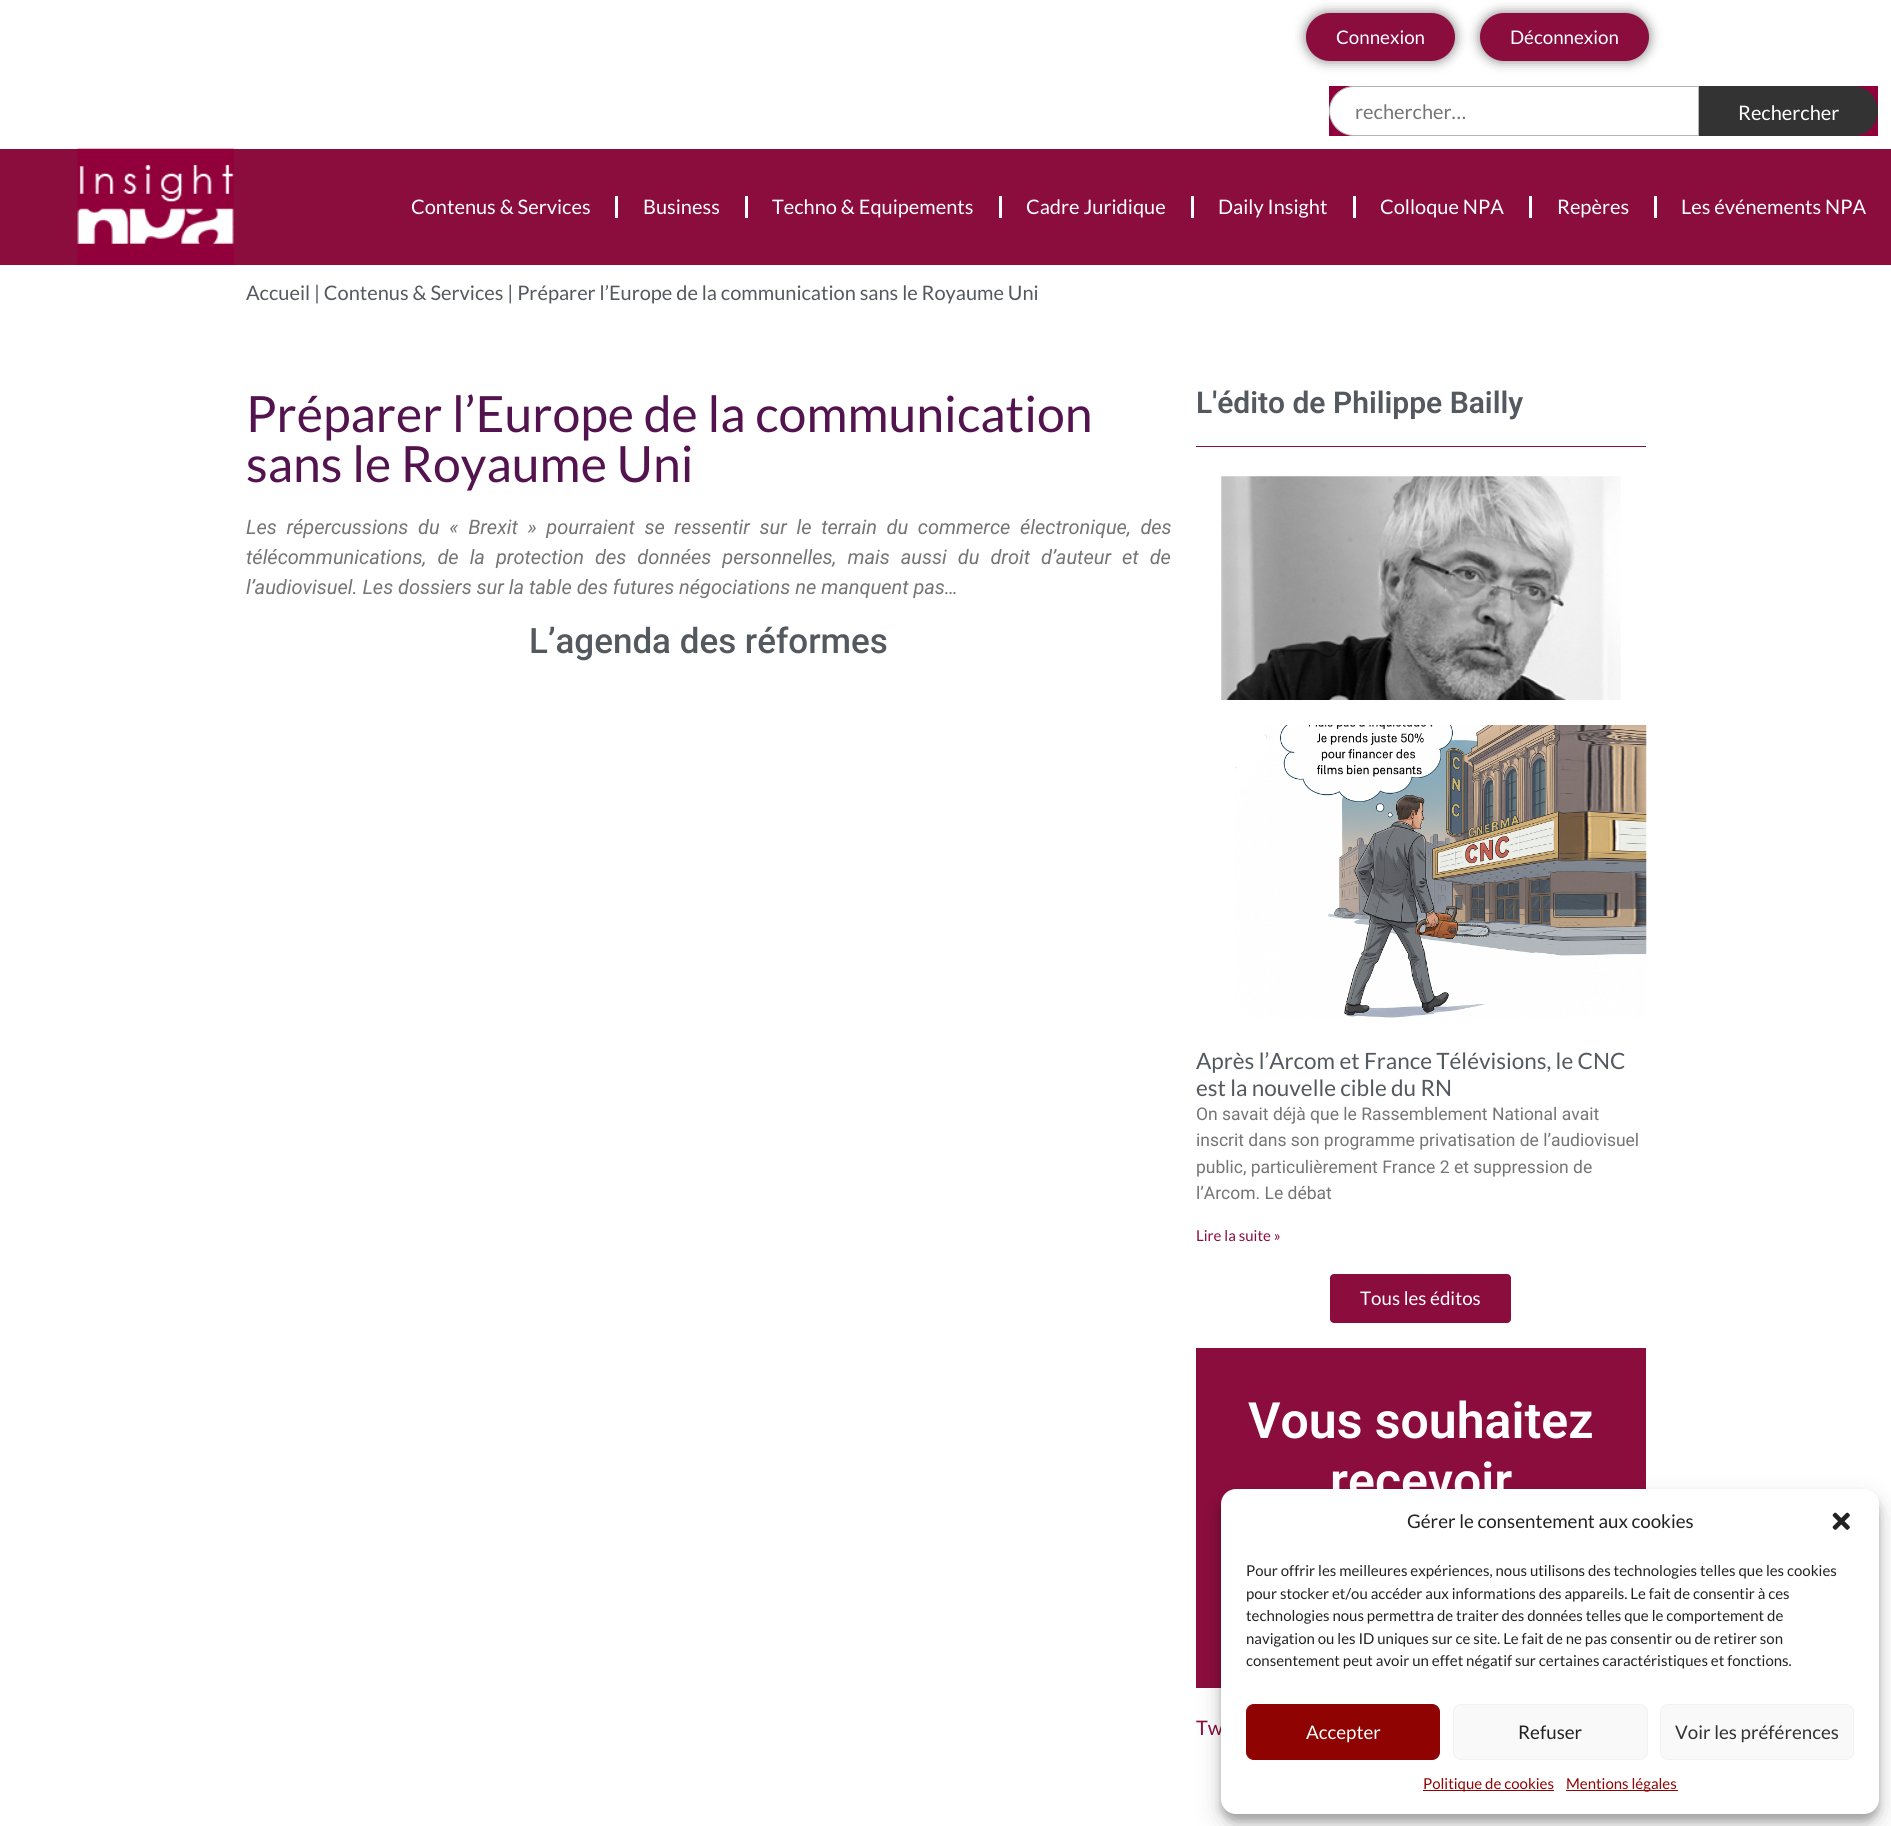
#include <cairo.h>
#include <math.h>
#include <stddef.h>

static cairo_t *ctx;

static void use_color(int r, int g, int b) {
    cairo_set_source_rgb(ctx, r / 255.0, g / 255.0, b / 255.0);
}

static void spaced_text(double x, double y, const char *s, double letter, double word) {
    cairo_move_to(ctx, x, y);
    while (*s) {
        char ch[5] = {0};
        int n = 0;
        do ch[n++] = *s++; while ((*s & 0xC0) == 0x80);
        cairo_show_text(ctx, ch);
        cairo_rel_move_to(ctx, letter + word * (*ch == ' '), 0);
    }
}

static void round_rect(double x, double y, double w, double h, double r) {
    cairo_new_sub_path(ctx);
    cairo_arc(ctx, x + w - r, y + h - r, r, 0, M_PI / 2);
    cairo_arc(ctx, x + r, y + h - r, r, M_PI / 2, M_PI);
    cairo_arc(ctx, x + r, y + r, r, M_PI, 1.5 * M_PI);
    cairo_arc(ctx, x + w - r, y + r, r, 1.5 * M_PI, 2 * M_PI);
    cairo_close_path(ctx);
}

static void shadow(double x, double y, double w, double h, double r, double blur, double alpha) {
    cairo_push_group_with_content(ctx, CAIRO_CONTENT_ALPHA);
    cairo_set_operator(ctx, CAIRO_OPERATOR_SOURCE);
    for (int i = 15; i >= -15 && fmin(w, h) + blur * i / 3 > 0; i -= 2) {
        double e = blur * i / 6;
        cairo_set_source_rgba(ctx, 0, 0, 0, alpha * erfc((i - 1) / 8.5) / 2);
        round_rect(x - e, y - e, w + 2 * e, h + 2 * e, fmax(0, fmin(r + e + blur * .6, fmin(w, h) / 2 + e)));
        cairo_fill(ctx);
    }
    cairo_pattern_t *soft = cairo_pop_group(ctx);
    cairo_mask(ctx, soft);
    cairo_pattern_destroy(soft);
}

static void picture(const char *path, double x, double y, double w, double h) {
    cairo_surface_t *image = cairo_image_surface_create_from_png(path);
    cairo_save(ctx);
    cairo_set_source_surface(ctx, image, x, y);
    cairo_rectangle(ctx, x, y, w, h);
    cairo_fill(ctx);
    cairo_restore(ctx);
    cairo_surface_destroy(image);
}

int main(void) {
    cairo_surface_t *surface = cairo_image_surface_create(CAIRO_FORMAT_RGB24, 1891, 1826);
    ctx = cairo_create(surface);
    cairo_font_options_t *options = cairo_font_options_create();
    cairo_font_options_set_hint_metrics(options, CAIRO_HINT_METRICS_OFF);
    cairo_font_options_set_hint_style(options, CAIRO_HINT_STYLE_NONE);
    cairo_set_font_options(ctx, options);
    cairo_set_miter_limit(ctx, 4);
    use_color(255, 255, 255);
    cairo_paint(ctx);
    use_color(0, 0, 0);
    shadow(1306, 13, 149, 48, 24, 6, 0.5);
    use_color(139, 13, 61);
    round_rect(1306, 13, 149, 48, 24);
    cairo_fill(ctx);
    cairo_select_font_face(ctx, "Lato", CAIRO_FONT_SLANT_NORMAL, CAIRO_FONT_WEIGHT_NORMAL);
    cairo_set_font_size(ctx, 18.75);
    use_color(255, 255, 255);
    cairo_move_to(ctx, 1336, 44);
    cairo_show_text(ctx, "Connexion");
    use_color(0, 0, 0);
    shadow(1480, 13, 169, 48, 24, 6, 0.5);
    use_color(139, 13, 61);
    round_rect(1480, 13, 169, 48, 24);
    cairo_fill(ctx);
    use_color(255, 255, 255);
    cairo_move_to(ctx, 1510, 44);
    cairo_show_text(ctx, "Déconnexion");
    use_color(144, 0, 58);
    cairo_rectangle(ctx, 1329, 86, 549, 50);
    cairo_fill(ctx);
    use_color(255, 255, 255);
    cairo_new_path(ctx);
    cairo_move_to(ctx, 1354, 86.5);
    cairo_line_to(ctx, 1698.5, 86.5);
    cairo_line_to(ctx, 1698.5, 135.5);
    cairo_line_to(ctx, 1354, 135.5);
    cairo_curve_to(ctx, 1340.5, 135.5, 1329.5, 124.5, 1329.5, 111);
    cairo_curve_to(ctx, 1329.5, 97.5, 1340.5, 86.5, 1354, 86.5);
    cairo_close_path(ctx);
    cairo_fill_preserve(ctx);
    use_color(178, 180, 184);
    cairo_set_line_width(ctx, 1);
    cairo_stroke(ctx);
    cairo_set_font_size(ctx, 20);
    use_color(117, 117, 117);
    cairo_move_to(ctx, 1355, 119);
    cairo_show_text(ctx, "rechercher…");
    use_color(51, 51, 51);
    cairo_new_path(ctx);
    cairo_move_to(ctx, 1699.5, 86.5);
    cairo_line_to(ctx, 1853, 86.5);
    cairo_curve_to(ctx, 1866.5, 86.5, 1877.5, 97.5, 1877.5, 111);
    cairo_curve_to(ctx, 1877.5, 124.5, 1866.5, 135.5, 1853, 135.5);
    cairo_line_to(ctx, 1699.5, 135.5);
    cairo_close_path(ctx);
    cairo_fill_preserve(ctx);
    cairo_stroke(ctx);
    use_color(255, 255, 255);
    cairo_move_to(ctx, 1738, 120);
    cairo_show_text(ctx, "Rechercher");
    use_color(139, 13, 61);
    cairo_rectangle(ctx, 0, 149, 1891, 116);
    cairo_fill(ctx);
    picture("img1.png", 77, 148, 157, 117);
    use_color(255, 255, 255);
    cairo_move_to(ctx, 411, 214);
    cairo_show_text(ctx, "Contenus & Services");
    cairo_rectangle(ctx, 615, 196, 3, 22);
    cairo_fill(ctx);
    cairo_move_to(ctx, 643, 214);
    cairo_show_text(ctx, "Business");
    cairo_rectangle(ctx, 745, 196, 3, 22);
    cairo_fill(ctx);
    cairo_move_to(ctx, 772, 214);
    cairo_show_text(ctx, "Techno & Equipements");
    cairo_rectangle(ctx, 999, 196, 3, 22);
    cairo_fill(ctx);
    cairo_move_to(ctx, 1026, 214);
    cairo_show_text(ctx, "Cadre Juridique");
    cairo_rectangle(ctx, 1191, 196, 3, 22);
    cairo_fill(ctx);
    cairo_move_to(ctx, 1218, 214);
    cairo_show_text(ctx, "Daily Insight");
    cairo_rectangle(ctx, 1353, 196, 3, 22);
    cairo_fill(ctx);
    cairo_move_to(ctx, 1380, 214);
    cairo_show_text(ctx, "Colloque NPA");
    cairo_rectangle(ctx, 1529, 196, 3, 22);
    cairo_fill(ctx);
    cairo_move_to(ctx, 1557, 214);
    cairo_show_text(ctx, "Repères");
    cairo_rectangle(ctx, 1654, 196, 3, 22);
    cairo_fill(ctx);
    cairo_move_to(ctx, 1681, 214);
    cairo_show_text(ctx, "Les événements NPA");
    use_color(84, 89, 95);
    cairo_move_to(ctx, 246, 300);
    cairo_show_text(ctx, "Accueil | Contenus & Services | Préparer l’Europe de la communication sans le Royaume Uni");
    cairo_set_font_size(ctx, 50);
    use_color(83, 19, 78);
    cairo_move_to(ctx, 246, 432);
    cairo_show_text(ctx, "Préparer l’Europe de la communication");
    cairo_move_to(ctx, 246, 482);
    cairo_show_text(ctx, "sans le Royaume Uni");
    cairo_select_font_face(ctx, "Roboto", CAIRO_FONT_SLANT_ITALIC, CAIRO_FONT_WEIGHT_NORMAL);
    cairo_set_font_size(ctx, 20);
    use_color(117, 117, 117);
    spaced_text(246, 534, "Les répercussions du « Brexit » pourraient se ressentir sur le terrain du commerce électronique, des", 0, 4.75);
    spaced_text(246, 564, "télécommunications, de la protection des données personnelles, mais aussi du droit d’auteur et de", 0, 6.1);
    cairo_move_to(ctx, 246, 594);
    cairo_show_text(ctx, "l’audiovisuel. Les dossiers sur la table des futures négociations ne manquent pas…");
    cairo_select_font_face(ctx, "Roboto Medium", CAIRO_FONT_SLANT_NORMAL, CAIRO_FONT_WEIGHT_NORMAL);
    cairo_set_font_size(ctx, 35);
    use_color(84, 89, 95);
    cairo_move_to(ctx, 529, 653);
    cairo_show_text(ctx, "L’agenda des réformes");
    cairo_select_font_face(ctx, "Roboto SemiBold", CAIRO_FONT_SLANT_NORMAL, CAIRO_FONT_WEIGHT_NORMAL);
    cairo_set_font_size(ctx, 30);
    cairo_move_to(ctx, 1196, 413);
    cairo_show_text(ctx, "L'édito de Philippe Bailly");
    use_color(139, 13, 61);
    cairo_rectangle(ctx, 1196, 446, 450, 1);
    cairo_fill(ctx);
    picture("img2.png", 1221, 476, 400, 224);
    picture("img3.png", 1235, 725, 412, 293);
    cairo_select_font_face(ctx, "Lato", CAIRO_FONT_SLANT_NORMAL, CAIRO_FONT_WEIGHT_NORMAL);
    cairo_set_font_size(ctx, 22.5);
    use_color(84, 89, 95);
    cairo_move_to(ctx, 1196, 1069);
    cairo_show_text(ctx, "Après l’Arcom et France Télévisions, le CNC");
    cairo_move_to(ctx, 1196, 1096);
    cairo_show_text(ctx, "est la nouvelle cible du RN");
    cairo_select_font_face(ctx, "Roboto", CAIRO_FONT_SLANT_NORMAL, CAIRO_FONT_WEIGHT_NORMAL);
    cairo_set_font_size(ctx, 17.5);
    use_color(117, 117, 117);
    cairo_move_to(ctx, 1196, 1120);
    cairo_show_text(ctx, "On savait déjà que le Rassemblement National avait");
    cairo_move_to(ctx, 1196, 1146);
    cairo_show_text(ctx, "inscrit dans son programme privatisation de l’audiovisuel");
    cairo_move_to(ctx, 1196, 1173);
    cairo_show_text(ctx, "public, particulièrement France 2 et suppression de");
    cairo_move_to(ctx, 1196, 1199);
    cairo_show_text(ctx, "l’Arcom. Le débat");
    cairo_select_font_face(ctx, "Lato", CAIRO_FONT_SLANT_NORMAL, CAIRO_FONT_WEIGHT_NORMAL);
    cairo_set_font_size(ctx, 15);
    use_color(139, 13, 61);
    cairo_move_to(ctx, 1196, 1241);
    cairo_show_text(ctx, "Lire la suite »");
    round_rect(1330, 1274, 181, 49, 4);
    cairo_fill(ctx);
    cairo_set_font_size(ctx, 18.75);
    use_color(255, 255, 255);
    cairo_move_to(ctx, 1360, 1305);
    cairo_show_text(ctx, "Tous les éditos");
    use_color(139, 13, 61);
    cairo_rectangle(ctx, 1196, 1348, 450, 340);
    cairo_fill(ctx);
    cairo_select_font_face(ctx, "Roboto SemiBold", CAIRO_FONT_SLANT_NORMAL, CAIRO_FONT_WEIGHT_NORMAL);
    cairo_set_font_size(ctx, 50);
    use_color(255, 255, 255);
    cairo_move_to(ctx, 1248, 1438);
    cairo_show_text(ctx, "Vous souhaitez");
    cairo_move_to(ctx, 1330, 1498);
    cairo_show_text(ctx, "recevoir");
    cairo_select_font_face(ctx, "Lato", CAIRO_FONT_SLANT_NORMAL, CAIRO_FONT_WEIGHT_NORMAL);
    cairo_set_font_size(ctx, 20);
    use_color(139, 13, 61);
    cairo_move_to(ctx, 1196, 1735);
    cairo_show_text(ctx, "Tw");
    use_color(0, 0, 0);
    shadow(1221, 1496, 658, 325, 15, 4, 0.23);
    shadow(1221, 1501, 658, 325, 15, 12.5, 0.19);
    use_color(255, 255, 255);
    round_rect(1221, 1489, 658, 325, 15);
    cairo_fill(ctx);
    cairo_set_font_size(ctx, 18.75);
    use_color(34, 34, 34);
    cairo_move_to(ctx, 1407, 1528);
    cairo_show_text(ctx, "Gérer le consentement aux cookies");
    picture("img4.png", 1832, 1512, 18, 18);
    cairo_set_font_size(ctx, 15);
    cairo_move_to(ctx, 1246, 1576);
    cairo_show_text(ctx, "Pour offrir les meilleures expériences, nous utilisons des technologies telles que les cookies");
    cairo_move_to(ctx, 1246, 1599);
    cairo_show_text(ctx, "pour stocker et/ou accéder aux informations des appareils. Le fait de consentir à ces");
    cairo_move_to(ctx, 1246, 1621);
    cairo_show_text(ctx, "technologies nous permettra de traiter des données telles que le comportement de");
    cairo_move_to(ctx, 1246, 1644);
    cairo_show_text(ctx, "navigation ou les ID uniques sur ce site. Le fait de ne pas consentir ou de retirer son");
    cairo_move_to(ctx, 1246, 1666);
    cairo_show_text(ctx, "consentement peut avoir un effet négatif sur certaines caractéristiques et fonctions.");
    use_color(143, 3, 3);
    round_rect(1246.5, 1704.5, 193, 55, 7.5);
    cairo_fill_preserve(ctx);
    cairo_stroke(ctx);
    cairo_set_font_size(ctx, 18.75);
    use_color(255, 255, 255);
    cairo_move_to(ctx, 1306, 1739);
    cairo_show_text(ctx, "Accepter");
    use_color(249, 249, 249);
    round_rect(1453.5, 1704.5, 194, 55, 7.5);
    cairo_fill_preserve(ctx);
    use_color(242, 242, 242);
    cairo_stroke(ctx);
    use_color(34, 34, 34);
    cairo_move_to(ctx, 1518, 1739);
    cairo_show_text(ctx, "Refuser");
    use_color(249, 249, 249);
    round_rect(1660.5, 1704.5, 193, 55, 7.5);
    cairo_fill_preserve(ctx);
    use_color(242, 242, 242);
    cairo_stroke(ctx);
    use_color(51, 51, 51);
    cairo_move_to(ctx, 1675, 1739);
    cairo_show_text(ctx, "Voir les préférences");
    use_color(143, 3, 3);
    cairo_rectangle(ctx, 1423, 1790, 131, 1);
    cairo_fill(ctx);
    cairo_set_font_size(ctx, 15);
    cairo_move_to(ctx, 1423, 1789);
    cairo_show_text(ctx, "Politique de cookies");
    cairo_rectangle(ctx, 1566, 1790, 112, 1);
    cairo_fill(ctx);
    cairo_move_to(ctx, 1566, 1789);
    cairo_show_text(ctx, "Mentions légales");
    cairo_surface_write_to_png(surface, "result.png");
    cairo_font_options_destroy(options);
    cairo_destroy(ctx);
    cairo_surface_destroy(surface);
    return 0;
}
